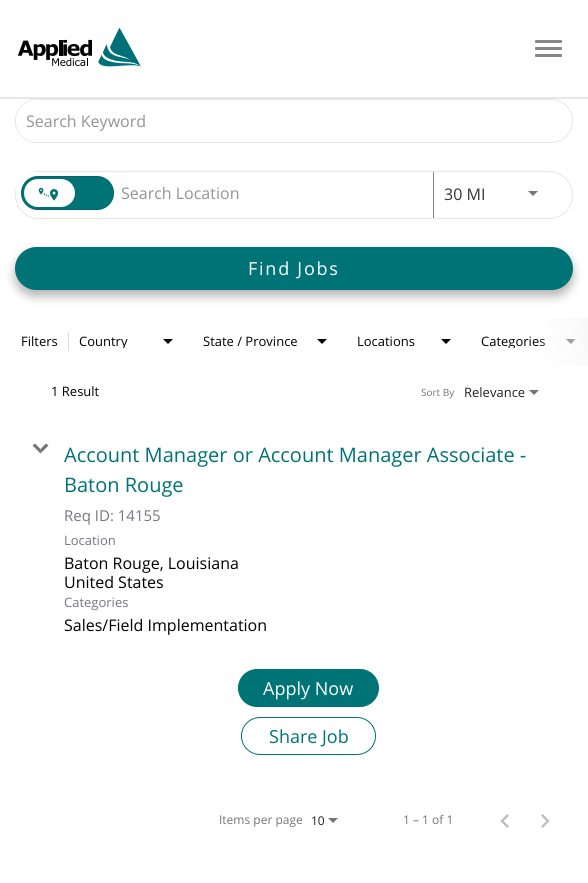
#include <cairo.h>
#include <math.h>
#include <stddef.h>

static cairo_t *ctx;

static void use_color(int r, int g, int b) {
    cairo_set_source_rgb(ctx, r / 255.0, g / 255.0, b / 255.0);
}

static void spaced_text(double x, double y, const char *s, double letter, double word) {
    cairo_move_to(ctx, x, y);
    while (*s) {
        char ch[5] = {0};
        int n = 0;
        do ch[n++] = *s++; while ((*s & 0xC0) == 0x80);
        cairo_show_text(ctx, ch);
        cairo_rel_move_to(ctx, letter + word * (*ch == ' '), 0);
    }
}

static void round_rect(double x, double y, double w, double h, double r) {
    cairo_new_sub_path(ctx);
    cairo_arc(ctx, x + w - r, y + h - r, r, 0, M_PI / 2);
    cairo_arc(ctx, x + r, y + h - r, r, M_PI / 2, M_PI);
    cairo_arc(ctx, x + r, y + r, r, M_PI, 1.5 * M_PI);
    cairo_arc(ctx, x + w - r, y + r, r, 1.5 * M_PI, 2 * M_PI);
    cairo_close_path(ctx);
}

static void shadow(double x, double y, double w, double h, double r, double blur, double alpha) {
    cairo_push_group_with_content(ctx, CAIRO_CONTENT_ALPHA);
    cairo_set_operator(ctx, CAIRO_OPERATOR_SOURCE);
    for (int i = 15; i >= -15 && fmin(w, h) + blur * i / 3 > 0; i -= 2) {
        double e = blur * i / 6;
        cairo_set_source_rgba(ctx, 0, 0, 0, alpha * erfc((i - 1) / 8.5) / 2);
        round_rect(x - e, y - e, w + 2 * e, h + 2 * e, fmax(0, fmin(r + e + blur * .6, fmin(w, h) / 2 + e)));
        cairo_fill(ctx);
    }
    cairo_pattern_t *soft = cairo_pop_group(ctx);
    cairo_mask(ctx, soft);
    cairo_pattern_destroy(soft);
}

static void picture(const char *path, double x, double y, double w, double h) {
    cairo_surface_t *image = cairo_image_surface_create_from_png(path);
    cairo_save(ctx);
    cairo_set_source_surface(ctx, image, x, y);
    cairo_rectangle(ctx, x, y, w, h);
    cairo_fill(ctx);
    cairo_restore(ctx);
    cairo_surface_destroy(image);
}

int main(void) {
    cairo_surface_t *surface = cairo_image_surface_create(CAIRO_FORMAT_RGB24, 588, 883);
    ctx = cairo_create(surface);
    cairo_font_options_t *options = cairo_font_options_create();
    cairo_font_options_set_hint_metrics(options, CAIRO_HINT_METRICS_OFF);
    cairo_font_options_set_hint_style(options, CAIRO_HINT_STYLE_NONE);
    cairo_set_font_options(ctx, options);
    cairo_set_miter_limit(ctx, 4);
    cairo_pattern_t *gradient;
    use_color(255, 255, 255);
    cairo_paint(ctx);
    use_color(231, 231, 231);
    cairo_rectangle(ctx, 0, 97, 588, 2);
    cairo_fill(ctx);
    picture("img1.png", 17, 27, 124, 40);
    use_color(136, 136, 136);
    round_rect(535, 40, 27, 3, 1);
    cairo_fill(ctx);
    round_rect(535, 47, 27, 3, 1);
    cairo_fill(ctx);
    round_rect(535, 54, 27, 3, 1);
    cairo_fill(ctx);
    round_rect(15.5, 99.5, 557, 43, 21.5);
    use_color(230, 230, 230);
    cairo_set_line_width(ctx, 1);
    cairo_stroke(ctx);
    use_color(255, 255, 255);
    round_rect(16, 100, 536, 42, 21);
    cairo_fill(ctx);
    cairo_select_font_face(ctx, "Open Sans", CAIRO_FONT_SLANT_NORMAL, CAIRO_FONT_WEIGHT_NORMAL);
    cairo_set_font_size(ctx, 16);
    use_color(148, 148, 148);
    cairo_move_to(ctx, 26, 127);
    cairo_show_text(ctx, "Search Keyword");
    round_rect(15.5, 171.5, 557, 47, 23.5);
    use_color(230, 230, 230);
    cairo_stroke(ctx);
    use_color(255, 255, 255);
    round_rect(16, 172, 409, 42, 21);
    cairo_fill(ctx);
    round_rect(16, 172, 103, 42, 21);
    cairo_fill(ctx);
    use_color(0, 115, 119);
    round_rect(21, 176, 93, 34, 17);
    cairo_fill(ctx);
    round_rect(21.5, 176.5, 92, 33, 16.5);
    cairo_set_source_rgba(ctx, 0, 0, 0, 0.12);
    cairo_stroke(ctx);
    use_color(0, 115, 119);
    cairo_new_path(ctx);
    cairo_move_to(ctx, 38, 177);
    cairo_line_to(ctx, 77, 177);
    cairo_line_to(ctx, 77, 209);
    cairo_line_to(ctx, 38, 209);
    cairo_curve_to(ctx, 29, 209, 22, 202, 22, 193);
    cairo_curve_to(ctx, 22, 184, 29, 177, 38, 177);
    cairo_close_path(ctx);
    cairo_fill(ctx);
    use_color(255, 255, 255);
    round_rect(24, 179, 51, 28, 14);
    cairo_fill(ctx);
    picture("img2.png", 38, 187, 21, 14);
    use_color(0, 115, 119);
    cairo_new_path(ctx);
    cairo_move_to(ctx, 77, 177);
    cairo_line_to(ctx, 97, 177);
    cairo_curve_to(ctx, 106, 177, 113, 184, 113, 193);
    cairo_curve_to(ctx, 113, 202, 106, 209, 97, 209);
    cairo_line_to(ctx, 77, 209);
    cairo_close_path(ctx);
    cairo_fill(ctx);
    use_color(148, 148, 148);
    cairo_move_to(ctx, 121, 199);
    cairo_show_text(ctx, "Search Location");
    use_color(136, 136, 136);
    cairo_rectangle(ctx, 433, 172, 1, 46);
    cairo_fill(ctx);
    use_color(51, 51, 51);
    cairo_move_to(ctx, 444, 200);
    cairo_show_text(ctx, "30 MI");
    use_color(117, 117, 117);
    cairo_new_path(ctx);
    cairo_move_to(ctx, 528, 191);
    cairo_line_to(ctx, 538, 191);
    cairo_line_to(ctx, 533, 196);
    cairo_close_path(ctx);
    cairo_fill(ctx);
    use_color(0, 0, 0);
    shadow(15, 253, 558, 43, 21.5, 5, 0.3);
    use_color(0, 115, 119);
    round_rect(15, 247, 558, 43, 21.5);
    cairo_fill(ctx);
    cairo_set_font_size(ctx, 18);
    use_color(255, 255, 255);
    spaced_text(248, 275, "Find Jobs", 1.75, 0);
    use_color(221, 221, 221);
    cairo_rectangle(ctx, 68, 332, 1, 19);
    cairo_fill(ctx);
    cairo_set_font_size(ctx, 13);
    use_color(0, 0, 0);
    cairo_move_to(ctx, 21, 346);
    cairo_show_text(ctx, "Filters");
    cairo_save(ctx);
    cairo_rectangle(ctx, 79, 334, 81, 14);
    cairo_clip(ctx);
    cairo_move_to(ctx, 79, 346);
    cairo_show_text(ctx, "Country");
    cairo_restore(ctx);
    cairo_new_path(ctx);
    cairo_move_to(ctx, 163, 339);
    cairo_line_to(ctx, 173, 339);
    cairo_line_to(ctx, 168, 344);
    cairo_close_path(ctx);
    cairo_fill(ctx);
    cairo_move_to(ctx, 203, 346);
    cairo_show_text(ctx, "State / Province");
    cairo_new_path(ctx);
    cairo_move_to(ctx, 317, 339);
    cairo_line_to(ctx, 327, 339);
    cairo_line_to(ctx, 322, 344);
    cairo_close_path(ctx);
    cairo_fill(ctx);
    cairo_move_to(ctx, 357, 346);
    cairo_show_text(ctx, "Locations");
    cairo_new_path(ctx);
    cairo_move_to(ctx, 441, 339);
    cairo_line_to(ctx, 451, 339);
    cairo_line_to(ctx, 446, 344);
    cairo_close_path(ctx);
    cairo_fill(ctx);
    cairo_save(ctx);
    cairo_rectangle(ctx, 481, 334, 81, 14);
    cairo_clip(ctx);
    cairo_move_to(ctx, 481, 346);
    cairo_show_text(ctx, "Categories");
    cairo_restore(ctx);
    cairo_new_path(ctx);
    cairo_move_to(ctx, 566, 339);
    cairo_line_to(ctx, 576, 339);
    cairo_line_to(ctx, 571, 344);
    cairo_close_path(ctx);
    cairo_fill(ctx);
    gradient = cairo_pattern_create_linear(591, 337, 535, 347);
    cairo_pattern_add_color_stop_rgba(gradient, 0, 0.008, 0, 0.141, 1);
    cairo_pattern_add_color_stop_rgba(gradient, 0, 0.976, 0.976, 0.976, 1);
    cairo_pattern_add_color_stop_rgba(gradient, 1, 0.976, 0.976, 0.976, 0);
    cairo_set_source(ctx, gradient);
    cairo_pattern_destroy(gradient);
    cairo_rectangle(ctx, 538, 318, 50, 48);
    cairo_fill(ctx);
    use_color(0, 0, 0);
    cairo_move_to(ctx, 51, 396);
    cairo_show_text(ctx, "1 Result");
    cairo_set_font_size(ctx, 10);
    use_color(117, 117, 117);
    cairo_move_to(ctx, 421, 396);
    cairo_show_text(ctx, "Sort By");
    cairo_set_font_size(ctx, 13);
    use_color(33, 33, 33);
    cairo_move_to(ctx, 464, 397);
    cairo_show_text(ctx, "Relevance");
    use_color(117, 117, 117);
    cairo_new_path(ctx);
    cairo_move_to(ctx, 529, 390);
    cairo_line_to(ctx, 539, 390);
    cairo_line_to(ctx, 534, 395);
    cairo_close_path(ctx);
    cairo_fill(ctx);
    cairo_new_path(ctx);
    cairo_move_to(ctx, 48.5, 445.5);
    cairo_line_to(ctx, 40.5, 453.5);
    cairo_line_to(ctx, 40.5, 449);
    cairo_line_to(ctx, 46, 443.5);
    cairo_close_path(ctx);
    cairo_fill(ctx);
    cairo_set_source_rgba(ctx, 0, 0, 0, 0.54);
    cairo_new_path(ctx);
    cairo_move_to(ctx, 40.5, 453.5);
    cairo_line_to(ctx, 32.5, 445.5);
    cairo_line_to(ctx, 35, 443.5);
    cairo_line_to(ctx, 40.5, 449);
    cairo_close_path(ctx);
    cairo_fill(ctx);
    cairo_set_font_size(ctx, 20);
    use_color(0, 115, 119);
    cairo_move_to(ctx, 64, 462);
    cairo_show_text(ctx, "Account Manager or Account Manager Associate -");
    cairo_move_to(ctx, 64, 492);
    cairo_show_text(ctx, "Baton Rouge");
    cairo_set_font_size(ctx, 15);
    use_color(118, 118, 126);
    cairo_move_to(ctx, 64, 521);
    cairo_show_text(ctx, "Req ID: 14155");
    cairo_set_font_size(ctx, 13);
    cairo_move_to(ctx, 64, 545);
    cairo_show_text(ctx, "Location");
    cairo_set_font_size(ctx, 16);
    use_color(0, 0, 0);
    cairo_move_to(ctx, 64, 569);
    cairo_show_text(ctx, "Baton Rouge, Louisiana");
    cairo_move_to(ctx, 64, 588);
    cairo_show_text(ctx, "United States");
    cairo_set_font_size(ctx, 13);
    use_color(118, 118, 126);
    cairo_move_to(ctx, 64, 607);
    cairo_show_text(ctx, "Categories");
    cairo_set_font_size(ctx, 16);
    use_color(0, 0, 0);
    cairo_move_to(ctx, 64, 631);
    cairo_show_text(ctx, "Sales/Field Implementation");
    use_color(0, 115, 119);
    round_rect(238.5, 669.5, 140, 37, 18.5);
    cairo_fill_preserve(ctx);
    cairo_stroke(ctx);
    cairo_set_font_size(ctx, 18);
    use_color(255, 255, 255);
    cairo_move_to(ctx, 263, 695);
    cairo_show_text(ctx, "Apply Now");
    round_rect(241.5, 717.5, 134, 37, 18.5);
    use_color(0, 115, 119);
    cairo_stroke(ctx);
    cairo_move_to(ctx, 269, 743);
    cairo_show_text(ctx, "Share Job");
    cairo_set_font_size(ctx, 12);
    use_color(117, 117, 117);
    cairo_move_to(ctx, 219, 824);
    cairo_show_text(ctx, "Items per page");
    use_color(33, 33, 33);
    cairo_move_to(ctx, 311, 825);
    cairo_show_text(ctx, "10");
    use_color(117, 117, 117);
    cairo_new_path(ctx);
    cairo_move_to(ctx, 328, 818);
    cairo_line_to(ctx, 338, 818);
    cairo_line_to(ctx, 333, 823);
    cairo_close_path(ctx);
    cairo_fill(ctx);
    cairo_move_to(ctx, 403, 824);
    cairo_show_text(ctx, "1 – 1 of 1");
    picture("img3.png", 500, 814, 9, 14);
    picture("img4.png", 541, 814, 9, 14);
    cairo_surface_write_to_png(surface, "result.png");
    cairo_font_options_destroy(options);
    cairo_destroy(ctx);
    cairo_surface_destroy(surface);
    return 0;
}
